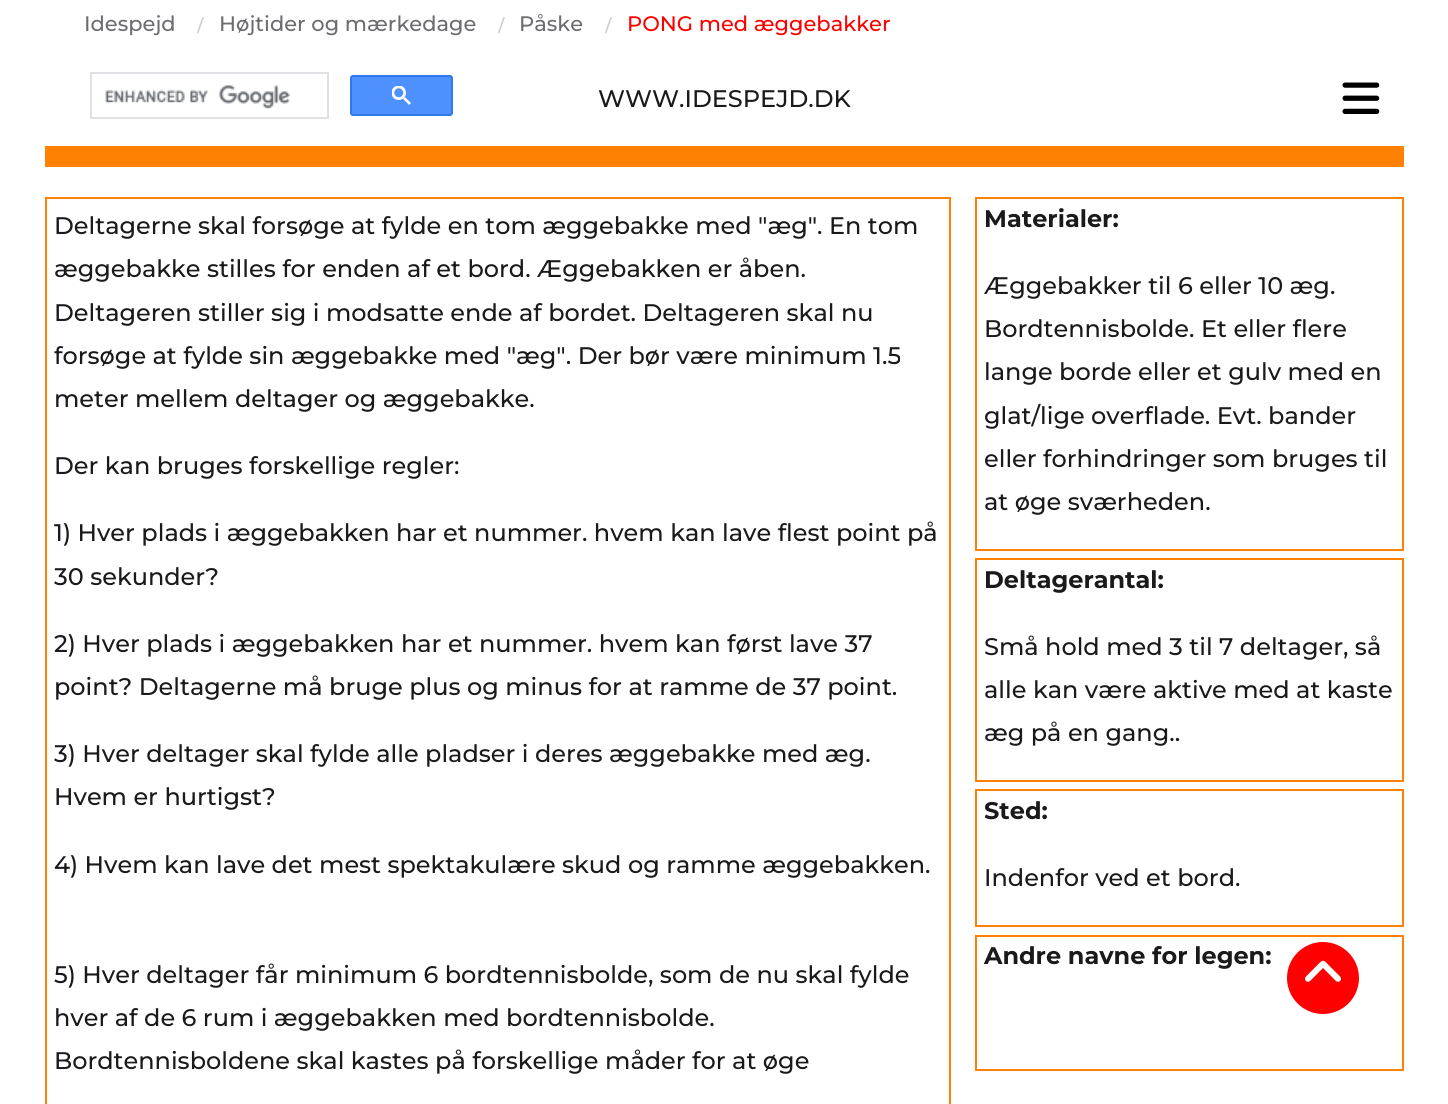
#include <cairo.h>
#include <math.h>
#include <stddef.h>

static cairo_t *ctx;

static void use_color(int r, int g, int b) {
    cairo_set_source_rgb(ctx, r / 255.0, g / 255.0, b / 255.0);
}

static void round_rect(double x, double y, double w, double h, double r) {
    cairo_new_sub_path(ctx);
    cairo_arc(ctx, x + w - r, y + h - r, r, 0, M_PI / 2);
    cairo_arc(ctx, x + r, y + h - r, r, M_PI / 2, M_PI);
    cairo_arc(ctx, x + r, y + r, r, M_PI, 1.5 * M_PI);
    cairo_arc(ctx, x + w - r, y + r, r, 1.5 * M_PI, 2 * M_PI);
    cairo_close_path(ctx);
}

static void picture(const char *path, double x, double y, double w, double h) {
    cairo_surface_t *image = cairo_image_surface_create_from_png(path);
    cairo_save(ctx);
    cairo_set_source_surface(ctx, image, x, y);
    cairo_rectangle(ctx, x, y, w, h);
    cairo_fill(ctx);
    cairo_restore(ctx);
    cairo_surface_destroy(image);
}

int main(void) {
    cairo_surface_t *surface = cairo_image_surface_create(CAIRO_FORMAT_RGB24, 1448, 1104);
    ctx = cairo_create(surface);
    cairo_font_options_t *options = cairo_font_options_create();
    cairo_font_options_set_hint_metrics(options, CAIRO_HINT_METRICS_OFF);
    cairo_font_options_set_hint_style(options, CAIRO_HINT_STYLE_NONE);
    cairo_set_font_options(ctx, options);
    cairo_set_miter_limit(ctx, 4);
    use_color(255, 255, 255);
    cairo_paint(ctx);
    cairo_select_font_face(ctx, "Montserrat Medium", CAIRO_FONT_SLANT_NORMAL, CAIRO_FONT_WEIGHT_NORMAL);
    cairo_set_font_size(ctx, 21);
    use_color(109, 109, 113);
    cairo_move_to(ctx, 84, 31);
    cairo_show_text(ctx, "Idespejd");
    cairo_select_font_face(ctx, "Liberation Serif", CAIRO_FONT_SLANT_NORMAL, CAIRO_FONT_WEIGHT_BOLD);
    cairo_set_font_size(ctx, 24);
    use_color(204, 204, 204);
    cairo_move_to(ctx, 197, 33);
    cairo_show_text(ctx, "/");
    cairo_select_font_face(ctx, "Montserrat Medium", CAIRO_FONT_SLANT_NORMAL, CAIRO_FONT_WEIGHT_NORMAL);
    cairo_set_font_size(ctx, 21);
    use_color(109, 109, 113);
    cairo_move_to(ctx, 219, 31);
    cairo_show_text(ctx, "Højtider og mærkedage");
    cairo_select_font_face(ctx, "Liberation Serif", CAIRO_FONT_SLANT_NORMAL, CAIRO_FONT_WEIGHT_BOLD);
    cairo_set_font_size(ctx, 24);
    use_color(204, 204, 204);
    cairo_move_to(ctx, 498, 33);
    cairo_show_text(ctx, "/");
    cairo_select_font_face(ctx, "Montserrat Medium", CAIRO_FONT_SLANT_NORMAL, CAIRO_FONT_WEIGHT_NORMAL);
    cairo_set_font_size(ctx, 21);
    use_color(109, 109, 113);
    cairo_move_to(ctx, 519, 31);
    cairo_show_text(ctx, "Påske");
    cairo_select_font_face(ctx, "Liberation Serif", CAIRO_FONT_SLANT_NORMAL, CAIRO_FONT_WEIGHT_BOLD);
    cairo_set_font_size(ctx, 24);
    use_color(204, 204, 204);
    cairo_move_to(ctx, 605, 33);
    cairo_show_text(ctx, "/");
    cairo_select_font_face(ctx, "Montserrat Medium", CAIRO_FONT_SLANT_NORMAL, CAIRO_FONT_WEIGHT_NORMAL);
    cairo_set_font_size(ctx, 21);
    use_color(254, 0, 0);
    cairo_move_to(ctx, 627, 31);
    cairo_show_text(ctx, "PONG med æggebakker");
    cairo_rectangle(ctx, 91, 73, 237, 45);
    use_color(223, 225, 229);
    cairo_stroke(ctx);
    picture("img1.png", 105, 85, 185, 24);
    use_color(77, 144, 254);
    round_rect(351, 76, 101, 39, 2);
    cairo_fill_preserve(ctx);
    use_color(48, 121, 237);
    cairo_stroke(ctx);
    picture("img2.png", 392, 86, 19, 19);
    cairo_set_font_size(ctx, 24);
    use_color(26, 26, 27);
    cairo_move_to(ctx, 598, 107);
    cairo_show_text(ctx, "WWW.IDESPEJD.DK");
    picture("img3.png", 1342, 82, 38, 32);
    use_color(255, 129, 3);
    cairo_rectangle(ctx, 45, 146, 1359, 21);
    cairo_fill(ctx);
    cairo_rectangle(ctx, 46, 198, 904, 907);
    cairo_stroke(ctx);
    use_color(26, 26, 27);
    cairo_move_to(ctx, 54, 234);
    cairo_show_text(ctx, "Deltagerne skal forsøge at fylde en tom æggebakke med \"æg\". En tom");
    cairo_move_to(ctx, 54, 277);
    cairo_show_text(ctx, "æggebakke stilles for enden af et bord. Æggebakken er åben.");
    cairo_move_to(ctx, 54, 321);
    cairo_show_text(ctx, "Deltageren stiller sig i modsatte ende af bordet. Deltageren skal nu");
    cairo_move_to(ctx, 54, 364);
    cairo_show_text(ctx, "forsøge at fylde sin æggebakke med \"æg\". Der bør være minimum 1.5");
    cairo_move_to(ctx, 54, 407);
    cairo_show_text(ctx, "meter mellem deltager og æggebakke.");
    cairo_move_to(ctx, 54, 474);
    cairo_show_text(ctx, "Der kan bruges forskellige regler:");
    cairo_move_to(ctx, 54, 541);
    cairo_show_text(ctx, "1) Hver plads i æggebakken har et nummer. hvem kan lave flest point på");
    cairo_move_to(ctx, 54, 585);
    cairo_show_text(ctx, "30 sekunder?");
    cairo_move_to(ctx, 54, 652);
    cairo_show_text(ctx, "2) Hver plads i æggebakken har et nummer. hvem kan først lave 37");
    cairo_move_to(ctx, 54, 695);
    cairo_show_text(ctx, "point? Deltagerne må bruge plus og minus for at ramme de 37 point.");
    cairo_move_to(ctx, 54, 762);
    cairo_show_text(ctx, "3) Hver deltager skal fylde alle pladser i deres æggebakke med æg.");
    cairo_move_to(ctx, 54, 805);
    cairo_show_text(ctx, "Hvem er hurtigst?");
    cairo_move_to(ctx, 54, 873);
    cairo_show_text(ctx, "4) Hvem kan lave det mest spektakulære skud og ramme æggebakken.");
    cairo_move_to(ctx, 54, 983);
    cairo_show_text(ctx, "5) Hver deltager får minimum 6 bordtennisbolde, som de nu skal fylde");
    cairo_move_to(ctx, 54, 1026);
    cairo_show_text(ctx, "hver af de 6 rum i æggebakken med bordtennisbolde.");
    cairo_move_to(ctx, 54, 1069);
    cairo_show_text(ctx, "Bordtennisboldene skal kastes på forskellige måder for at øge");
    cairo_rectangle(ctx, 976, 198, 427, 352);
    use_color(255, 129, 3);
    cairo_stroke(ctx);
    cairo_select_font_face(ctx, "Montserrat", CAIRO_FONT_SLANT_NORMAL, CAIRO_FONT_WEIGHT_BOLD);
    use_color(26, 26, 27);
    cairo_move_to(ctx, 984, 227);
    cairo_show_text(ctx, "Materialer:");
    cairo_select_font_face(ctx, "Montserrat Medium", CAIRO_FONT_SLANT_NORMAL, CAIRO_FONT_WEIGHT_NORMAL);
    cairo_move_to(ctx, 984, 294);
    cairo_show_text(ctx, "Æggebakker til 6 eller 10 æg.");
    cairo_move_to(ctx, 984, 337);
    cairo_show_text(ctx, "Bordtennisbolde. Et eller flere");
    cairo_move_to(ctx, 984, 380);
    cairo_show_text(ctx, "lange borde eller et gulv med en");
    cairo_move_to(ctx, 984, 424);
    cairo_show_text(ctx, "glat/lige overflade. Evt. bander");
    cairo_move_to(ctx, 984, 467);
    cairo_show_text(ctx, "eller forhindringer som bruges til");
    cairo_move_to(ctx, 984, 510);
    cairo_show_text(ctx, "at øge sværheden.");
    cairo_rectangle(ctx, 976, 559, 427, 222);
    use_color(255, 129, 3);
    cairo_stroke(ctx);
    cairo_select_font_face(ctx, "Montserrat", CAIRO_FONT_SLANT_NORMAL, CAIRO_FONT_WEIGHT_BOLD);
    use_color(26, 26, 27);
    cairo_move_to(ctx, 984, 588);
    cairo_show_text(ctx, "Deltagerantal:");
    cairo_select_font_face(ctx, "Montserrat Medium", CAIRO_FONT_SLANT_NORMAL, CAIRO_FONT_WEIGHT_NORMAL);
    cairo_move_to(ctx, 984, 655);
    cairo_show_text(ctx, "Små hold med 3 til 7 deltager, så");
    cairo_move_to(ctx, 984, 698);
    cairo_show_text(ctx, "alle kan være aktive med at kaste");
    cairo_move_to(ctx, 984, 741);
    cairo_show_text(ctx, "æg på en gang..");
    cairo_rectangle(ctx, 976, 790, 427, 136);
    use_color(255, 129, 3);
    cairo_stroke(ctx);
    cairo_select_font_face(ctx, "Montserrat", CAIRO_FONT_SLANT_NORMAL, CAIRO_FONT_WEIGHT_BOLD);
    use_color(26, 26, 27);
    cairo_move_to(ctx, 984, 819);
    cairo_show_text(ctx, "Sted:");
    cairo_select_font_face(ctx, "Montserrat Medium", CAIRO_FONT_SLANT_NORMAL, CAIRO_FONT_WEIGHT_NORMAL);
    cairo_move_to(ctx, 984, 886);
    cairo_show_text(ctx, "Indenfor ved et bord.");
    cairo_rectangle(ctx, 976, 936, 427, 134);
    use_color(255, 129, 3);
    cairo_stroke(ctx);
    cairo_select_font_face(ctx, "Montserrat", CAIRO_FONT_SLANT_NORMAL, CAIRO_FONT_WEIGHT_BOLD);
    use_color(26, 26, 27);
    cairo_move_to(ctx, 984, 964);
    cairo_show_text(ctx, "Andre navne for legen:");
    use_color(254, 0, 0);
    cairo_new_path(ctx);
    cairo_arc(ctx, 1323, 978, 36, 0, 2 * M_PI);
    cairo_fill(ctx);
    picture("img4.png", 1305, 960, 36, 22);
    cairo_surface_write_to_png(surface, "result.png");
    cairo_font_options_destroy(options);
    cairo_destroy(ctx);
    cairo_surface_destroy(surface);
    return 0;
}
